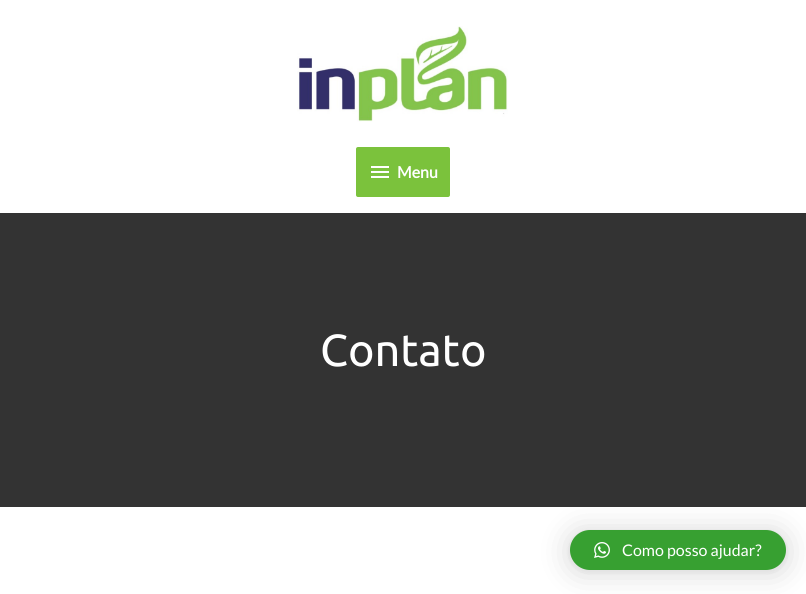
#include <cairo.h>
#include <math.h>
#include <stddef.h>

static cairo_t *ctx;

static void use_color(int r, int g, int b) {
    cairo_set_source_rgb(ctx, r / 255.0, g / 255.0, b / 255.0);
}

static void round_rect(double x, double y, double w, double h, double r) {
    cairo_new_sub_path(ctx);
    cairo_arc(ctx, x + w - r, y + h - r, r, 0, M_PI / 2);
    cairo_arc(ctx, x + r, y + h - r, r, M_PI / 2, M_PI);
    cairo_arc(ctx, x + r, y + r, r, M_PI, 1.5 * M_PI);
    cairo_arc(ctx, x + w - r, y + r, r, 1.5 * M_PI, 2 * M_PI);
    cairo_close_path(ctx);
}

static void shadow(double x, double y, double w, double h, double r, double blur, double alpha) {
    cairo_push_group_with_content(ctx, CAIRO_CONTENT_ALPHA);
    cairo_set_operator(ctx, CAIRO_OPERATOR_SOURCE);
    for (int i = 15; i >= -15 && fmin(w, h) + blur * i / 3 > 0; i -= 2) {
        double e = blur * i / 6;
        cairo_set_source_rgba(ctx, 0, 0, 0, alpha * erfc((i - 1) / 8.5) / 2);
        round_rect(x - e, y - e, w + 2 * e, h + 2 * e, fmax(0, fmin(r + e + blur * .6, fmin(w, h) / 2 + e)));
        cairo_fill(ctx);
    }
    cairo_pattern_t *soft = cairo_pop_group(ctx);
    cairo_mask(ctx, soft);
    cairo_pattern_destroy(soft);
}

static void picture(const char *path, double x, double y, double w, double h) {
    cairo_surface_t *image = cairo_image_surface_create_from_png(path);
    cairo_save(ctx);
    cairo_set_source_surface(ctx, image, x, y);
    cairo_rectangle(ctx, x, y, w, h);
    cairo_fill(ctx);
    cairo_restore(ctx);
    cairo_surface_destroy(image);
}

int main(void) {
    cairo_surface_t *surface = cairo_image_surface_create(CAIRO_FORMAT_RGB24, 806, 594);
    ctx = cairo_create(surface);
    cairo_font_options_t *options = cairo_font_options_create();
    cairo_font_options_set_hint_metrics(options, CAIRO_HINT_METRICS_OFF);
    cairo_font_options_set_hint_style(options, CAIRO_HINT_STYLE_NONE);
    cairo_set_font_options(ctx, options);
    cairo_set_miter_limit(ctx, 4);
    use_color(255, 255, 255);
    cairo_paint(ctx);
    picture("img1.png", 297, 26, 211, 96);
    use_color(123, 194, 60);
    round_rect(356, 147, 94, 50, 2);
    cairo_fill(ctx);
    picture("img2.png", 371, 166, 18, 12);
    cairo_select_font_face(ctx, "Lato", CAIRO_FONT_SLANT_NORMAL, CAIRO_FONT_WEIGHT_BOLD);
    cairo_set_font_size(ctx, 16);
    use_color(255, 255, 255);
    cairo_move_to(ctx, 397, 178);
    cairo_show_text(ctx, "Menu");
    use_color(51, 51, 51);
    cairo_rectangle(ctx, 0, 213, 806, 294);
    cairo_fill(ctx);
    cairo_select_font_face(ctx, "Ubuntu", CAIRO_FONT_SLANT_NORMAL, CAIRO_FONT_WEIGHT_NORMAL);
    cairo_set_font_size(ctx, 45);
    use_color(255, 255, 255);
    cairo_move_to(ctx, 320, 366);
    cairo_show_text(ctx, "Contato");
    use_color(0, 0, 0);
    shadow(570, 532, 216, 40, 20, 16, 0.16);
    shadow(570, 531, 216, 40, 20, 3, 0.06);
    use_color(55, 160, 49);
    round_rect(570, 530, 216, 40, 20);
    cairo_fill(ctx);
    picture("img3.png", 594, 542, 16, 16);
    cairo_select_font_face(ctx, "Lato", CAIRO_FONT_SLANT_NORMAL, CAIRO_FONT_WEIGHT_NORMAL);
    cairo_set_font_size(ctx, 16);
    use_color(255, 255, 255);
    cairo_move_to(ctx, 622, 556);
    cairo_show_text(ctx, "Como posso ajudar?");
    cairo_surface_write_to_png(surface, "result.png");
    cairo_font_options_destroy(options);
    cairo_destroy(ctx);
    cairo_surface_destroy(surface);
    return 0;
}
